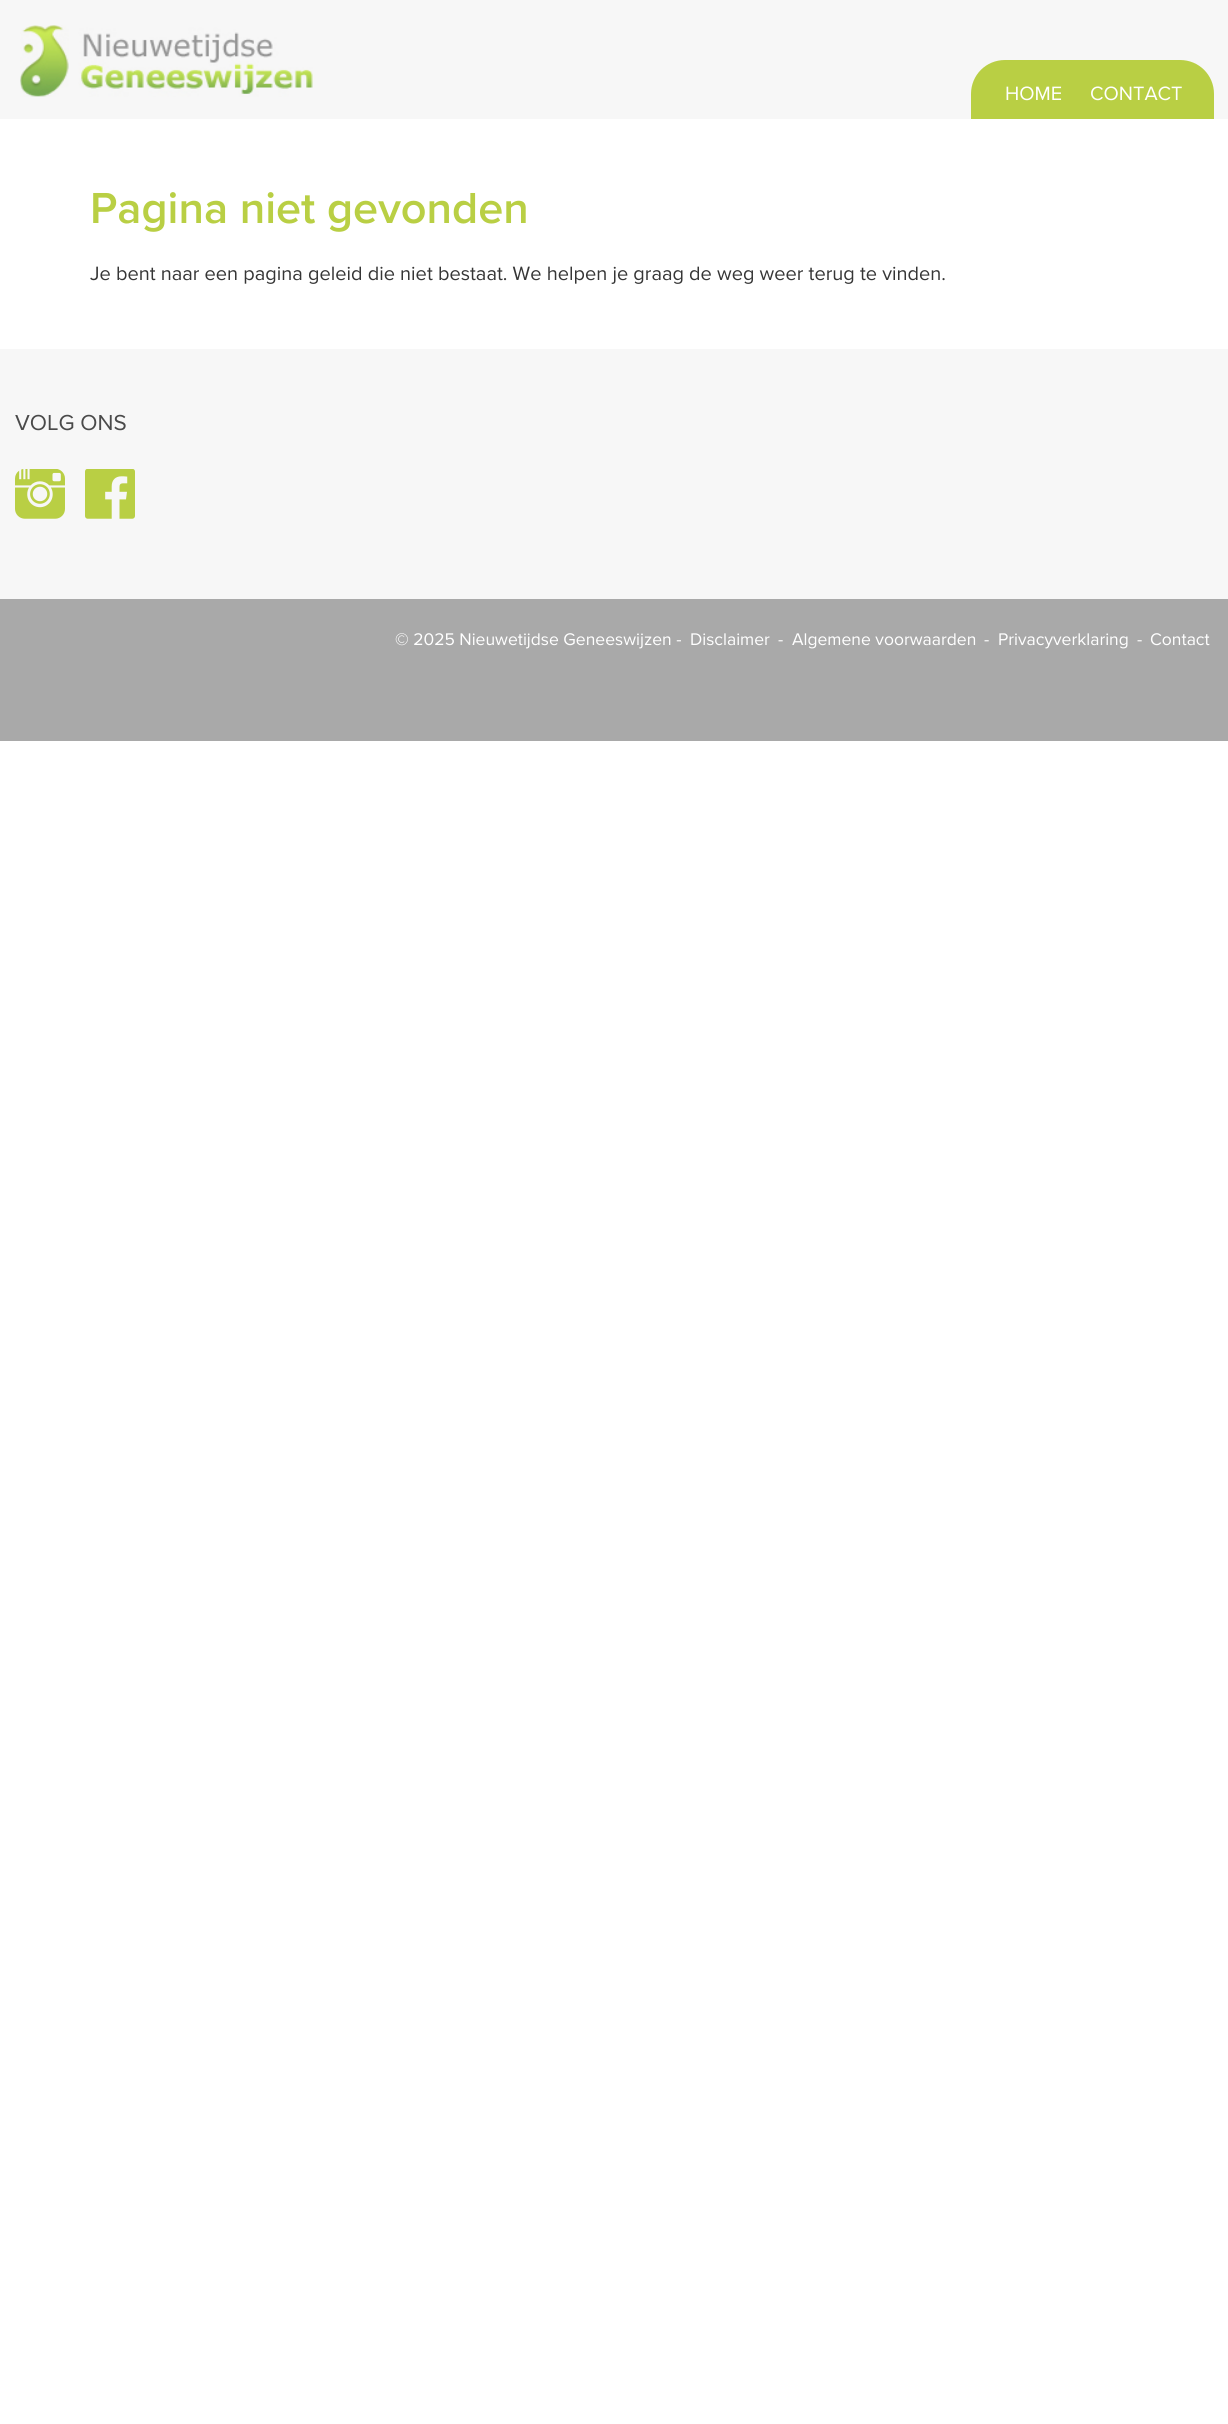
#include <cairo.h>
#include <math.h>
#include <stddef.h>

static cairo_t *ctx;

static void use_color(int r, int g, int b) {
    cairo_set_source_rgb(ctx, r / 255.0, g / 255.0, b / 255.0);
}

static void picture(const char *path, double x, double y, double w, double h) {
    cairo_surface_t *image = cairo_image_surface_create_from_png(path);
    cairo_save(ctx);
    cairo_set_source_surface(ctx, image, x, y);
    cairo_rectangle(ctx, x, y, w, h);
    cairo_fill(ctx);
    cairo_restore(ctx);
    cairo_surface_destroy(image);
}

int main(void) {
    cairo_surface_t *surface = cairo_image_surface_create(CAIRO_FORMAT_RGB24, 1228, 2424);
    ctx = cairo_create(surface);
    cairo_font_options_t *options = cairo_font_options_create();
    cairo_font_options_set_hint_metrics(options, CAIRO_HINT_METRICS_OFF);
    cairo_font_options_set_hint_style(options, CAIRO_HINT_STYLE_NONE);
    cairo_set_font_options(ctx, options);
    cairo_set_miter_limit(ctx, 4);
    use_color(255, 255, 255);
    cairo_paint(ctx);
    use_color(247, 247, 247);
    cairo_rectangle(ctx, 0, 0, 1228, 119);
    cairo_fill(ctx);
    picture("img1.png", 20, 25, 293, 72);
    use_color(185, 207, 68);
    cairo_new_path(ctx);
    cairo_move_to(ctx, 1005, 60);
    cairo_line_to(ctx, 1180, 60);
    cairo_curve_to(ctx, 1199, 60, 1214, 75, 1214, 94);
    cairo_line_to(ctx, 1214, 119);
    cairo_line_to(ctx, 971, 119);
    cairo_line_to(ctx, 971, 94);
    cairo_curve_to(ctx, 971, 75, 986, 60, 1005, 60);
    cairo_close_path(ctx);
    cairo_fill(ctx);
    cairo_select_font_face(ctx, "Proxima Nova", CAIRO_FONT_SLANT_NORMAL, CAIRO_FONT_WEIGHT_NORMAL);
    cairo_set_font_size(ctx, 20);
    use_color(255, 255, 255);
    cairo_move_to(ctx, 1005, 100);
    cairo_show_text(ctx, "HOME");
    cairo_move_to(ctx, 1090, 100);
    cairo_show_text(ctx, "CONTACT");
    cairo_select_font_face(ctx, "Proxima Nova SemiBold", CAIRO_FONT_SLANT_NORMAL, CAIRO_FONT_WEIGHT_NORMAL);
    cairo_set_font_size(ctx, 45);
    use_color(185, 207, 68);
    cairo_move_to(ctx, 90, 223);
    cairo_show_text(ctx, "Pagina niet gevonden");
    cairo_select_font_face(ctx, "Proxima Nova", CAIRO_FONT_SLANT_NORMAL, CAIRO_FONT_WEIGHT_NORMAL);
    cairo_set_font_size(ctx, 20);
    use_color(54, 54, 54);
    cairo_move_to(ctx, 90, 280);
    cairo_show_text(ctx, "Je bent naar een pagina geleid die niet bestaat. We helpen je graag de weg weer terug te vinden.");
    use_color(247, 247, 247);
    cairo_rectangle(ctx, 0, 349, 1228, 250);
    cairo_fill(ctx);
    cairo_set_font_size(ctx, 22.5);
    use_color(74, 74, 74);
    cairo_move_to(ctx, 15, 430);
    cairo_show_text(ctx, "VOLG ONS");
    picture("img2.png", 15, 469, 50, 50);
    picture("img3.png", 85, 469, 50, 50);
    use_color(169, 169, 169);
    cairo_rectangle(ctx, 0, 599, 1228, 142);
    cairo_fill(ctx);
    cairo_set_font_size(ctx, 17.5);
    use_color(255, 255, 255);
    cairo_move_to(ctx, 395, 645);
    cairo_show_text(ctx, "© 2025 Nieuwetijdse Geneeswijzen -");
    cairo_move_to(ctx, 690, 645);
    cairo_show_text(ctx, "Disclaimer");
    cairo_move_to(ctx, 778, 645);
    cairo_show_text(ctx, "-");
    cairo_move_to(ctx, 792, 645);
    cairo_show_text(ctx, "Algemene voorwaarden");
    cairo_move_to(ctx, 984, 645);
    cairo_show_text(ctx, "-");
    cairo_move_to(ctx, 998, 645);
    cairo_show_text(ctx, "Privacyverklaring");
    cairo_move_to(ctx, 1137, 645);
    cairo_show_text(ctx, "-");
    cairo_move_to(ctx, 1150, 645);
    cairo_show_text(ctx, "Contact");
    cairo_surface_write_to_png(surface, "result.png");
    cairo_font_options_destroy(options);
    cairo_destroy(ctx);
    cairo_surface_destroy(surface);
    return 0;
}
